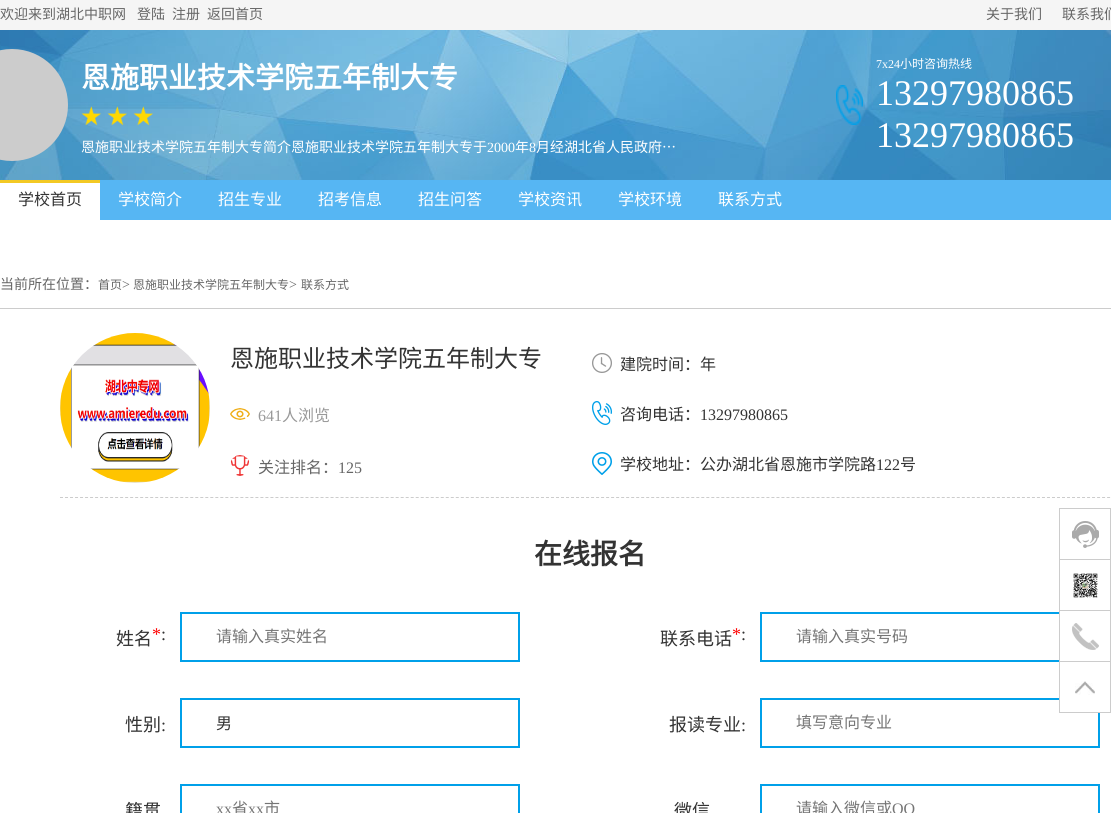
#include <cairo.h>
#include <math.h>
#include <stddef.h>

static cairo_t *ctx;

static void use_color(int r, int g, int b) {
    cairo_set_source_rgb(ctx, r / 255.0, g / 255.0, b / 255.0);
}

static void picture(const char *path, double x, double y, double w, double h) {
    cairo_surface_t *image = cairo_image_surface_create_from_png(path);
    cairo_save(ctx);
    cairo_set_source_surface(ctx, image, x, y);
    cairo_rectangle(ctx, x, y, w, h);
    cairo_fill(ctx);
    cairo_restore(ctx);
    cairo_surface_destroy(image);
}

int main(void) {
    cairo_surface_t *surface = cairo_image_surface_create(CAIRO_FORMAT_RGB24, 1111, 813);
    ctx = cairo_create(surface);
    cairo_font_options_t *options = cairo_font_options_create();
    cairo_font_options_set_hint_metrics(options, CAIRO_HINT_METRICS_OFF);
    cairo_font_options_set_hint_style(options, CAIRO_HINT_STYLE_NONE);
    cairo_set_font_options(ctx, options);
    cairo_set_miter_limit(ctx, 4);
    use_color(255, 255, 255);
    cairo_paint(ctx);
    use_color(245, 245, 245);
    cairo_rectangle(ctx, 0, 0, 1111, 30);
    cairo_fill(ctx);
    cairo_select_font_face(ctx, "Noto Sans CJK SC", CAIRO_FONT_SLANT_NORMAL, CAIRO_FONT_WEIGHT_NORMAL);
    cairo_set_font_size(ctx, 14);
    use_color(102, 102, 102);
    cairo_move_to(ctx, 0, 19);
    cairo_show_text(ctx, "欢迎来到湖北中职网");
    cairo_move_to(ctx, 137, 19);
    cairo_show_text(ctx, "登陆");
    cairo_move_to(ctx, 172, 19);
    cairo_show_text(ctx, "注册");
    cairo_move_to(ctx, 207, 19);
    cairo_show_text(ctx, "返回首页");
    cairo_move_to(ctx, 986, 19);
    cairo_show_text(ctx, "关于我们");
    cairo_move_to(ctx, 1062, 19);
    cairo_show_text(ctx, "联系我们");
    picture("img1.png", 0, 30, 1111, 150);
    use_color(204, 204, 204);
    cairo_arc(ctx, 12, 105, 56, 0, 2 * M_PI);
    cairo_fill(ctx);
    cairo_select_font_face(ctx, "Noto Sans CJK SC", CAIRO_FONT_SLANT_NORMAL, CAIRO_FONT_WEIGHT_BOLD);
    cairo_set_font_size(ctx, 29);
    use_color(255, 255, 255);
    cairo_move_to(ctx, 81, 88);
    cairo_show_text(ctx, "恩施职业技术学院五年制大专");
    picture("img2.png", 81, 106, 20, 20);
    picture("img3.png", 107, 106, 20, 20);
    picture("img4.png", 133, 106, 20, 20);
    cairo_select_font_face(ctx, "Noto Sans CJK SC", CAIRO_FONT_SLANT_NORMAL, CAIRO_FONT_WEIGHT_NORMAL);
    cairo_set_font_size(ctx, 14);
    cairo_move_to(ctx, 81, 152);
    cairo_show_text(ctx, "恩施职业技术学院五年制大专简介恩施职业技术学院五年制大专于");
    cairo_select_font_face(ctx, "Liberation Serif", CAIRO_FONT_SLANT_NORMAL, CAIRO_FONT_WEIGHT_NORMAL);
    cairo_move_to(ctx, 487, 152);
    cairo_show_text(ctx, "2000");
    cairo_select_font_face(ctx, "Noto Sans CJK SC", CAIRO_FONT_SLANT_NORMAL, CAIRO_FONT_WEIGHT_NORMAL);
    cairo_move_to(ctx, 515, 152);
    cairo_show_text(ctx, "年");
    cairo_select_font_face(ctx, "Liberation Serif", CAIRO_FONT_SLANT_NORMAL, CAIRO_FONT_WEIGHT_NORMAL);
    cairo_move_to(ctx, 529, 152);
    cairo_show_text(ctx, "8");
    cairo_select_font_face(ctx, "Noto Sans CJK SC", CAIRO_FONT_SLANT_NORMAL, CAIRO_FONT_WEIGHT_NORMAL);
    cairo_move_to(ctx, 536, 152);
    cairo_show_text(ctx, "月经湖北省人民政府…");
    picture("img5.png", 836, 85, 27, 40);
    cairo_select_font_face(ctx, "Liberation Serif", CAIRO_FONT_SLANT_NORMAL, CAIRO_FONT_WEIGHT_NORMAL);
    cairo_set_font_size(ctx, 12);
    cairo_move_to(ctx, 876, 68);
    cairo_show_text(ctx, "7x24");
    cairo_select_font_face(ctx, "Noto Sans CJK SC", CAIRO_FONT_SLANT_NORMAL, CAIRO_FONT_WEIGHT_NORMAL);
    cairo_move_to(ctx, 900, 68);
    cairo_show_text(ctx, "小时咨询热线");
    cairo_select_font_face(ctx, "Liberation Serif", CAIRO_FONT_SLANT_NORMAL, CAIRO_FONT_WEIGHT_NORMAL);
    cairo_set_font_size(ctx, 36);
    cairo_move_to(ctx, 876, 105);
    cairo_show_text(ctx, "13297980865");
    cairo_move_to(ctx, 876, 147);
    cairo_show_text(ctx, "13297980865");
    use_color(86, 182, 243);
    cairo_rectangle(ctx, 100, 180, 1011, 40);
    cairo_fill(ctx);
    use_color(243, 201, 36);
    cairo_rectangle(ctx, 0, 180, 100, 3);
    cairo_fill(ctx);
    cairo_select_font_face(ctx, "Noto Sans CJK SC", CAIRO_FONT_SLANT_NORMAL, CAIRO_FONT_WEIGHT_NORMAL);
    cairo_set_font_size(ctx, 16);
    use_color(51, 51, 51);
    cairo_move_to(ctx, 18, 205);
    cairo_show_text(ctx, "学校首页");
    use_color(255, 255, 255);
    cairo_move_to(ctx, 118, 205);
    cairo_show_text(ctx, "学校简介");
    cairo_move_to(ctx, 218, 205);
    cairo_show_text(ctx, "招生专业");
    cairo_move_to(ctx, 318, 205);
    cairo_show_text(ctx, "招考信息");
    cairo_move_to(ctx, 418, 205);
    cairo_show_text(ctx, "招生问答");
    cairo_move_to(ctx, 518, 205);
    cairo_show_text(ctx, "学校资讯");
    cairo_move_to(ctx, 618, 205);
    cairo_show_text(ctx, "学校环境");
    cairo_move_to(ctx, 718, 205);
    cairo_show_text(ctx, "联系方式");
    use_color(204, 204, 204);
    cairo_rectangle(ctx, 0, 308, 1111, 1);
    cairo_fill(ctx);
    cairo_set_font_size(ctx, 14);
    use_color(102, 102, 102);
    cairo_move_to(ctx, 0, 289);
    cairo_show_text(ctx, "当前所在位置：");
    cairo_set_font_size(ctx, 12);
    cairo_move_to(ctx, 98, 289);
    cairo_show_text(ctx, "首页");
    cairo_select_font_face(ctx, "Liberation Serif", CAIRO_FONT_SLANT_NORMAL, CAIRO_FONT_WEIGHT_NORMAL);
    cairo_set_font_size(ctx, 14);
    cairo_move_to(ctx, 122, 289);
    cairo_show_text(ctx, ">");
    cairo_select_font_face(ctx, "Noto Sans CJK SC", CAIRO_FONT_SLANT_NORMAL, CAIRO_FONT_WEIGHT_NORMAL);
    cairo_set_font_size(ctx, 12);
    cairo_move_to(ctx, 133, 289);
    cairo_show_text(ctx, "恩施职业技术学院五年制大专");
    cairo_select_font_face(ctx, "Liberation Serif", CAIRO_FONT_SLANT_NORMAL, CAIRO_FONT_WEIGHT_NORMAL);
    cairo_set_font_size(ctx, 14);
    cairo_move_to(ctx, 289, 289);
    cairo_show_text(ctx, ">");
    cairo_select_font_face(ctx, "Noto Sans CJK SC", CAIRO_FONT_SLANT_NORMAL, CAIRO_FONT_WEIGHT_NORMAL);
    cairo_set_font_size(ctx, 12);
    cairo_move_to(ctx, 301, 289);
    cairo_show_text(ctx, "联系方式");
    cairo_new_path(ctx);
    cairo_move_to(ctx, 60, 497.5);
    cairo_line_to(ctx, 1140, 497.5);
    use_color(204, 204, 204);
    cairo_set_line_width(ctx, 1);
    cairo_set_dash(ctx, (double[]){3, 2.01}, 2, 0);
    cairo_stroke(ctx);
    picture("img6.png", 60, 333, 150, 150);
    cairo_set_font_size(ctx, 24);
    use_color(51, 51, 51);
    cairo_move_to(ctx, 230, 367);
    cairo_show_text(ctx, "恩施职业技术学院五年制大专");
    picture("img7.png", 230, 408, 20, 12);
    cairo_select_font_face(ctx, "Liberation Serif", CAIRO_FONT_SLANT_NORMAL, CAIRO_FONT_WEIGHT_NORMAL);
    cairo_set_font_size(ctx, 16);
    use_color(153, 153, 153);
    cairo_move_to(ctx, 258, 421);
    cairo_show_text(ctx, "641");
    cairo_select_font_face(ctx, "Noto Sans CJK SC", CAIRO_FONT_SLANT_NORMAL, CAIRO_FONT_WEIGHT_NORMAL);
    cairo_move_to(ctx, 282, 421);
    cairo_show_text(ctx, "人浏览");
    picture("img8.png", 230, 455, 20, 21);
    use_color(102, 102, 102);
    cairo_move_to(ctx, 258, 473);
    cairo_show_text(ctx, "关注排名：");
    cairo_select_font_face(ctx, "Liberation Serif", CAIRO_FONT_SLANT_NORMAL, CAIRO_FONT_WEIGHT_NORMAL);
    cairo_move_to(ctx, 338, 473);
    cairo_show_text(ctx, "125");
    picture("img9.png", 592, 353, 20, 20);
    cairo_select_font_face(ctx, "Noto Sans CJK SC", CAIRO_FONT_SLANT_NORMAL, CAIRO_FONT_WEIGHT_NORMAL);
    use_color(51, 51, 51);
    cairo_move_to(ctx, 620, 370);
    cairo_show_text(ctx, "建院时间：年");
    picture("img10.png", 592, 401, 20, 24);
    cairo_move_to(ctx, 620, 420);
    cairo_show_text(ctx, "咨询电话：");
    cairo_select_font_face(ctx, "Liberation Serif", CAIRO_FONT_SLANT_NORMAL, CAIRO_FONT_WEIGHT_NORMAL);
    cairo_move_to(ctx, 700, 420);
    cairo_show_text(ctx, "13297980865");
    picture("img11.png", 592, 452, 20, 23);
    cairo_select_font_face(ctx, "Noto Sans CJK SC", CAIRO_FONT_SLANT_NORMAL, CAIRO_FONT_WEIGHT_NORMAL);
    cairo_move_to(ctx, 620, 470);
    cairo_show_text(ctx, "学校地址：公办湖北省恩施市学院路");
    cairo_select_font_face(ctx, "Liberation Serif", CAIRO_FONT_SLANT_NORMAL, CAIRO_FONT_WEIGHT_NORMAL);
    cairo_move_to(ctx, 876, 470);
    cairo_show_text(ctx, "122");
    cairo_select_font_face(ctx, "Noto Sans CJK SC", CAIRO_FONT_SLANT_NORMAL, CAIRO_FONT_WEIGHT_NORMAL);
    cairo_move_to(ctx, 900, 470);
    cairo_show_text(ctx, "号");
    cairo_select_font_face(ctx, "Noto Sans CJK SC", CAIRO_FONT_SLANT_NORMAL, CAIRO_FONT_WEIGHT_BOLD);
    cairo_set_font_size(ctx, 28);
    cairo_move_to(ctx, 534, 564);
    cairo_show_text(ctx, "在线报名");
    cairo_select_font_face(ctx, "Noto Sans CJK SC", CAIRO_FONT_SLANT_NORMAL, CAIRO_FONT_WEIGHT_NORMAL);
    cairo_set_font_size(ctx, 18);
    cairo_move_to(ctx, 116, 645);
    cairo_show_text(ctx, "姓名");
    cairo_select_font_face(ctx, "Liberation Serif", CAIRO_FONT_SLANT_NORMAL, CAIRO_FONT_WEIGHT_NORMAL);
    use_color(255, 0, 0);
    cairo_move_to(ctx, 152, 640);
    cairo_show_text(ctx, "*");
    use_color(51, 51, 51);
    cairo_move_to(ctx, 161, 640);
    cairo_show_text(ctx, ":");
    cairo_rectangle(ctx, 181, 613, 338, 48);
    use_color(0, 160, 233);
    cairo_set_line_width(ctx, 2);
    cairo_set_dash(ctx, NULL, 0, 0);
    cairo_stroke(ctx);
    cairo_select_font_face(ctx, "Noto Sans CJK SC", CAIRO_FONT_SLANT_NORMAL, CAIRO_FONT_WEIGHT_NORMAL);
    cairo_set_font_size(ctx, 16);
    use_color(117, 117, 117);
    cairo_move_to(ctx, 216, 642);
    cairo_show_text(ctx, "请输入真实姓名");
    cairo_set_font_size(ctx, 18);
    use_color(51, 51, 51);
    cairo_move_to(ctx, 660, 645);
    cairo_show_text(ctx, "联系电话");
    cairo_select_font_face(ctx, "Liberation Serif", CAIRO_FONT_SLANT_NORMAL, CAIRO_FONT_WEIGHT_NORMAL);
    use_color(255, 0, 0);
    cairo_move_to(ctx, 732, 640);
    cairo_show_text(ctx, "*");
    use_color(51, 51, 51);
    cairo_move_to(ctx, 741, 640);
    cairo_show_text(ctx, ":");
    cairo_rectangle(ctx, 761, 613, 338, 48);
    use_color(0, 160, 233);
    cairo_stroke(ctx);
    cairo_select_font_face(ctx, "Noto Sans CJK SC", CAIRO_FONT_SLANT_NORMAL, CAIRO_FONT_WEIGHT_NORMAL);
    cairo_set_font_size(ctx, 16);
    use_color(117, 117, 117);
    cairo_move_to(ctx, 796, 642);
    cairo_show_text(ctx, "请输入真实号码");
    cairo_set_font_size(ctx, 18);
    use_color(51, 51, 51);
    cairo_move_to(ctx, 125, 731);
    cairo_show_text(ctx, "性别");
    cairo_select_font_face(ctx, "Liberation Serif", CAIRO_FONT_SLANT_NORMAL, CAIRO_FONT_WEIGHT_NORMAL);
    cairo_move_to(ctx, 161, 731);
    cairo_show_text(ctx, ":");
    cairo_rectangle(ctx, 181, 699, 338, 48);
    use_color(0, 160, 233);
    cairo_stroke(ctx);
    cairo_select_font_face(ctx, "Noto Sans CJK SC", CAIRO_FONT_SLANT_NORMAL, CAIRO_FONT_WEIGHT_NORMAL);
    cairo_set_font_size(ctx, 16);
    use_color(51, 51, 51);
    cairo_move_to(ctx, 216, 729);
    cairo_show_text(ctx, "男");
    cairo_set_font_size(ctx, 18);
    cairo_move_to(ctx, 669, 731);
    cairo_show_text(ctx, "报读专业");
    cairo_select_font_face(ctx, "Liberation Serif", CAIRO_FONT_SLANT_NORMAL, CAIRO_FONT_WEIGHT_NORMAL);
    cairo_move_to(ctx, 741, 731);
    cairo_show_text(ctx, ":");
    cairo_rectangle(ctx, 761, 699, 338, 48);
    use_color(0, 160, 233);
    cairo_stroke(ctx);
    cairo_select_font_face(ctx, "Noto Sans CJK SC", CAIRO_FONT_SLANT_NORMAL, CAIRO_FONT_WEIGHT_NORMAL);
    cairo_set_font_size(ctx, 16);
    use_color(117, 117, 117);
    cairo_move_to(ctx, 796, 728);
    cairo_show_text(ctx, "填写意向专业");
    cairo_set_font_size(ctx, 18);
    use_color(51, 51, 51);
    cairo_move_to(ctx, 125, 817);
    cairo_show_text(ctx, "籍贯");
    cairo_rectangle(ctx, 181, 785, 338, 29);
    use_color(0, 160, 233);
    cairo_stroke(ctx);
    cairo_select_font_face(ctx, "Liberation Serif", CAIRO_FONT_SLANT_NORMAL, CAIRO_FONT_WEIGHT_NORMAL);
    cairo_set_font_size(ctx, 16);
    use_color(117, 117, 117);
    cairo_move_to(ctx, 216, 814);
    cairo_show_text(ctx, "xx");
    cairo_select_font_face(ctx, "Noto Sans CJK SC", CAIRO_FONT_SLANT_NORMAL, CAIRO_FONT_WEIGHT_NORMAL);
    cairo_move_to(ctx, 232, 814);
    cairo_show_text(ctx, "省");
    cairo_select_font_face(ctx, "Liberation Serif", CAIRO_FONT_SLANT_NORMAL, CAIRO_FONT_WEIGHT_NORMAL);
    cairo_move_to(ctx, 248, 814);
    cairo_show_text(ctx, "xx");
    cairo_select_font_face(ctx, "Noto Sans CJK SC", CAIRO_FONT_SLANT_NORMAL, CAIRO_FONT_WEIGHT_NORMAL);
    cairo_move_to(ctx, 264, 814);
    cairo_show_text(ctx, "市");
    cairo_set_font_size(ctx, 18);
    use_color(51, 51, 51);
    cairo_move_to(ctx, 674, 817);
    cairo_show_text(ctx, "微信");
    cairo_rectangle(ctx, 761, 785, 338, 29);
    use_color(0, 160, 233);
    cairo_stroke(ctx);
    cairo_set_font_size(ctx, 16);
    use_color(117, 117, 117);
    cairo_move_to(ctx, 796, 814);
    cairo_show_text(ctx, "请输入微信或");
    cairo_select_font_face(ctx, "Liberation Serif", CAIRO_FONT_SLANT_NORMAL, CAIRO_FONT_WEIGHT_NORMAL);
    cairo_move_to(ctx, 892, 814);
    cairo_show_text(ctx, "QQ");
    use_color(204, 204, 204);
    cairo_rectangle(ctx, 1059, 508, 52, 1);
    cairo_fill(ctx);
    cairo_rectangle(ctx, 1110, 508, 1, 51);
    cairo_fill(ctx);
    cairo_rectangle(ctx, 1059, 508, 1, 51);
    cairo_fill(ctx);
    picture("img12.png", 1072, 521, 27, 27);
    cairo_rectangle(ctx, 1059, 559, 52, 1);
    cairo_fill(ctx);
    cairo_rectangle(ctx, 1110, 559, 1, 51);
    cairo_fill(ctx);
    cairo_rectangle(ctx, 1059, 559, 1, 51);
    cairo_fill(ctx);
    picture("img13.png", 1073, 573, 25, 25);
    use_color(255, 255, 255);
    cairo_rectangle(ctx, 1060, 612, 40, 49);
    cairo_fill(ctx);
    cairo_rectangle(ctx, 1059.5, 610.5, 51, 51);
    use_color(204, 204, 204);
    cairo_set_line_width(ctx, 1);
    cairo_stroke(ctx);
    picture("img14.png", 1072, 623, 27, 27);
    use_color(255, 255, 255);
    cairo_rectangle(ctx, 1060, 698, 40, 14);
    cairo_fill(ctx);
    use_color(204, 204, 204);
    cairo_rectangle(ctx, 1110, 662, 1, 51);
    cairo_fill(ctx);
    cairo_rectangle(ctx, 1059, 712, 52, 1);
    cairo_fill(ctx);
    cairo_rectangle(ctx, 1059, 662, 1, 51);
    cairo_fill(ctx);
    picture("img15.png", 1075, 681, 20, 14);
    cairo_surface_write_to_png(surface, "result.png");
    cairo_font_options_destroy(options);
    cairo_destroy(ctx);
    cairo_surface_destroy(surface);
    return 0;
}
